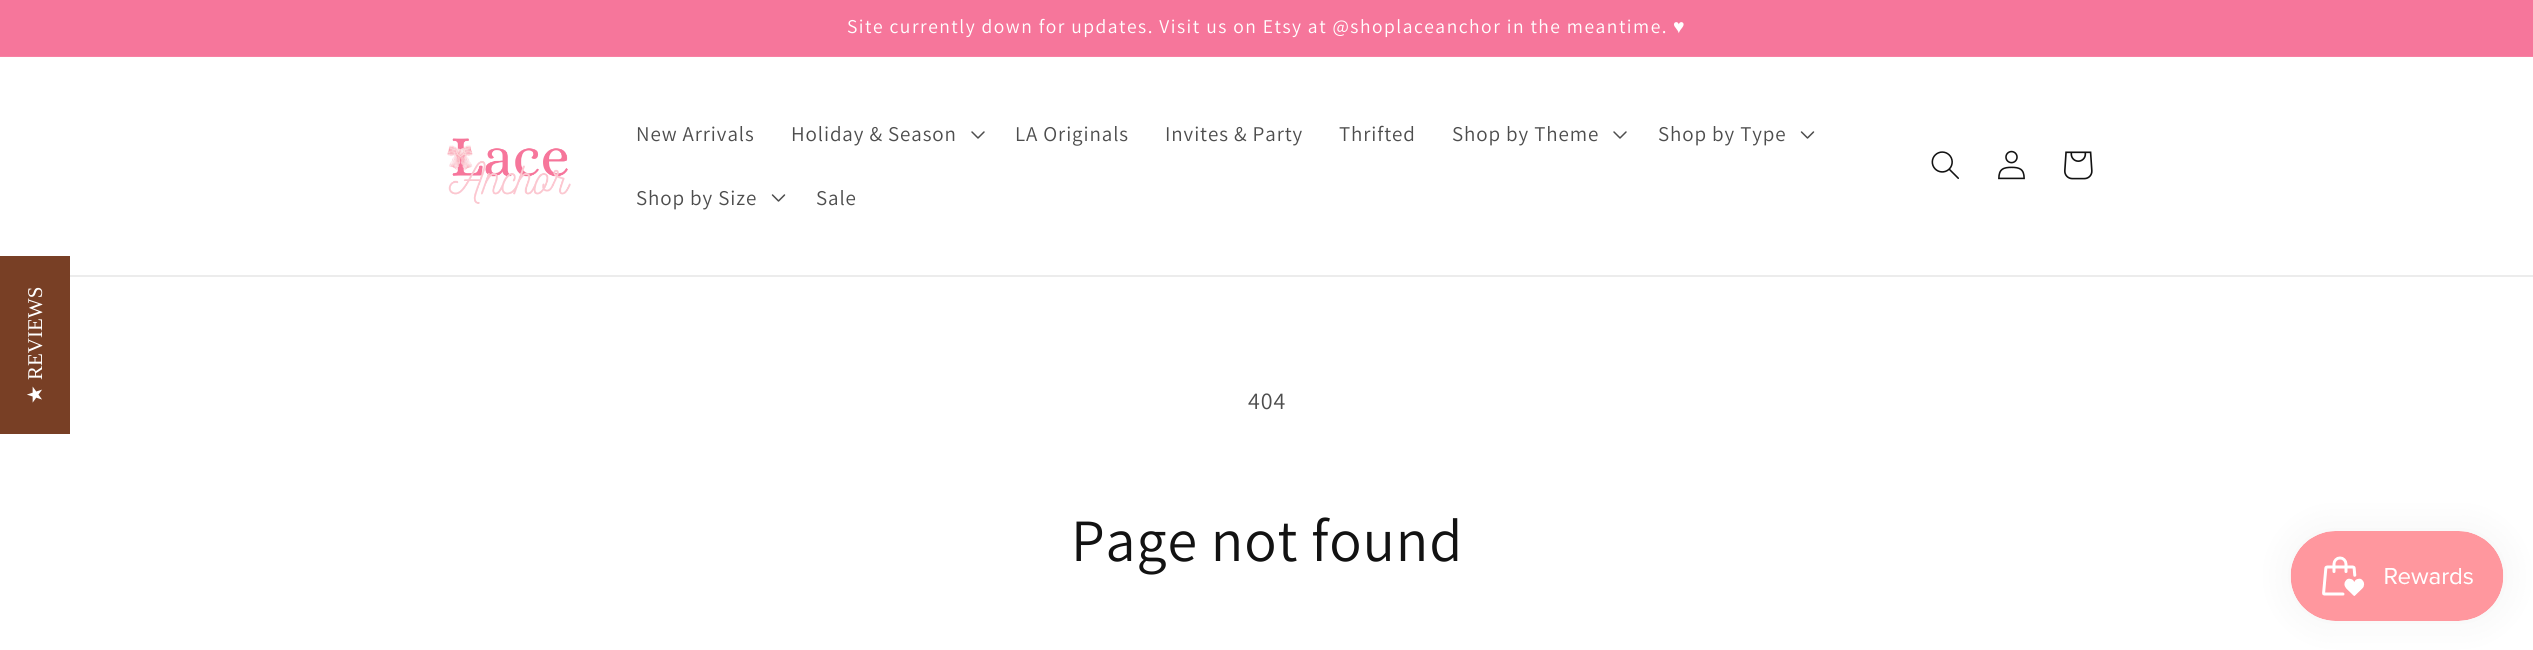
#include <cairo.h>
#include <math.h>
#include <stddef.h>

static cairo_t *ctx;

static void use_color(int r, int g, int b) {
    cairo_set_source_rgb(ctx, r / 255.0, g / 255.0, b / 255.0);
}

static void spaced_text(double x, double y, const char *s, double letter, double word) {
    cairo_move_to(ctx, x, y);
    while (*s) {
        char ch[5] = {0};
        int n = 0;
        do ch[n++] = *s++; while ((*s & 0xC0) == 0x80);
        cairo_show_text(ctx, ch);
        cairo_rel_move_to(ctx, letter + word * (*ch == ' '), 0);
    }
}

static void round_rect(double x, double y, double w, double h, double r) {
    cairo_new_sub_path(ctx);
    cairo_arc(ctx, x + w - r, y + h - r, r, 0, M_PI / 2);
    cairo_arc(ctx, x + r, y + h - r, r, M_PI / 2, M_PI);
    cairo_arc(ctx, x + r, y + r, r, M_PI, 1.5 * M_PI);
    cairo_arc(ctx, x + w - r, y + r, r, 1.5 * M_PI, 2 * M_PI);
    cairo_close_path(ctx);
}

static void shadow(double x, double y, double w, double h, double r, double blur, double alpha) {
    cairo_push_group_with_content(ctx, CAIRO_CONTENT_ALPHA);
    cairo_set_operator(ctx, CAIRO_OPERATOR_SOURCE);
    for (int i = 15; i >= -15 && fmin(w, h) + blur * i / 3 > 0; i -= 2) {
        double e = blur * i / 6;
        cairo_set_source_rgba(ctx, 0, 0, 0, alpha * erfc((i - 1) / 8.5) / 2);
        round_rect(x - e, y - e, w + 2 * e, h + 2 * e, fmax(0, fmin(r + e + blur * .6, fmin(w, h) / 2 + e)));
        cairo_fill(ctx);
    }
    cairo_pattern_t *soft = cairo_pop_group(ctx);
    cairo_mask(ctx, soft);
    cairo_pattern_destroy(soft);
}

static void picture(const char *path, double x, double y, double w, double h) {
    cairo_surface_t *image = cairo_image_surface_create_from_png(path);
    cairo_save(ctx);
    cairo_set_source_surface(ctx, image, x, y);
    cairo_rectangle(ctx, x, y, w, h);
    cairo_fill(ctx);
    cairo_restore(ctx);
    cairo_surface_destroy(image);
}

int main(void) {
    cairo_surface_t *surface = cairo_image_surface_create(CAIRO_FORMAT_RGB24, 2533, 650);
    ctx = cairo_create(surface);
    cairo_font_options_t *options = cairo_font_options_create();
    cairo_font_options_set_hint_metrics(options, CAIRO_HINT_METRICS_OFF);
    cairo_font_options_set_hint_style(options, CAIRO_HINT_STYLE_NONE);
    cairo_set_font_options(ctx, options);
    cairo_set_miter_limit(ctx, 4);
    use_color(255, 255, 255);
    cairo_paint(ctx);
    use_color(246, 118, 155);
    cairo_rectangle(ctx, 0, 0, 2533, 56);
    cairo_fill(ctx);
    use_color(247, 129, 163);
    cairo_rectangle(ctx, 0, 56, 2533, 1);
    cairo_fill(ctx);
    cairo_select_font_face(ctx, "Assistant", CAIRO_FONT_SLANT_NORMAL, CAIRO_FONT_WEIGHT_NORMAL);
    cairo_set_font_size(ctx, 19.5);
    use_color(255, 255, 255);
    spaced_text(847, 33, "Site currently down for updates. Visit us on Etsy at @shoplaceanchor in the meantime.", 1.5, 0);
    cairo_select_font_face(ctx, "Liberation Sans", CAIRO_FONT_SLANT_NORMAL, CAIRO_FONT_WEIGHT_NORMAL);
    spaced_text(1673, 33, "♥", 1.5, 0);
    use_color(236, 236, 236);
    cairo_rectangle(ctx, 70, 275, 2463, 2);
    cairo_fill(ctx);
    picture("img1.png", 447, 138, 124, 66);
    cairo_select_font_face(ctx, "Assistant", CAIRO_FONT_SLANT_NORMAL, CAIRO_FONT_WEIGHT_NORMAL);
    cairo_set_font_size(ctx, 21);
    use_color(77, 77, 77);
    spaced_text(636, 141, "New Arrivals", 0.9, 0);
    spaced_text(791, 141, "Holiday & Season", 0.9, 0);
    picture("img2.png", 971, 131, 14, 8);
    spaced_text(1015, 141, "LA Originals", 0.9, 0);
    spaced_text(1165, 141, "Invites & Party", 0.9, 0);
    spaced_text(1339, 141, "Thrifted", 0.9, 0);
    spaced_text(1452, 141, "Shop by Theme", 0.9, 0);
    picture("img2.png", 1613, 131, 14, 8);
    spaced_text(1658, 141, "Shop by Type", 0.9, 0);
    picture("img3.png", 1800, 131, 15, 8);
    spaced_text(636, 205, "Shop by Size", 0.9, 0);
    picture("img3.png", 771, 194, 15, 8);
    spaced_text(816, 205, "Sale", 0.9, 0);
    picture("img4.png", 1931, 151, 28, 28);
    picture("img5.png", 1998, 150, 27, 30);
    picture("img6.png", 2064, 151, 29, 29);
    use_color(120, 63, 37);
    cairo_rectangle(ctx, 0, 256, 70, 178);
    cairo_fill(ctx);
    cairo_select_font_face(ctx, "Liberation Serif", CAIRO_FONT_SLANT_NORMAL, CAIRO_FONT_WEIGHT_NORMAL);
    use_color(255, 255, 255);
    cairo_save(ctx);
    cairo_translate(ctx, 42, 380);
    cairo_rotate(ctx, -90 * M_PI / 180);
    cairo_move_to(ctx, 0, 0);
    cairo_show_text(ctx, "REVIEWS");
    cairo_restore(ctx);
    cairo_select_font_face(ctx, "DejaVu Sans", CAIRO_FONT_SLANT_NORMAL, CAIRO_FONT_WEIGHT_NORMAL);
    cairo_save(ctx);
    cairo_translate(ctx, 42, 404);
    cairo_rotate(ctx, -90 * M_PI / 180);
    cairo_move_to(ctx, 0, 0);
    cairo_show_text(ctx, "★");
    cairo_restore(ctx);
    cairo_select_font_face(ctx, "Assistant", CAIRO_FONT_SLANT_NORMAL, CAIRO_FONT_WEIGHT_NORMAL);
    cairo_set_font_size(ctx, 24);
    use_color(77, 77, 77);
    spaced_text(1248, 409, "404", 0.9, 0);
    cairo_set_font_size(ctx, 60);
    use_color(18, 18, 18);
    spaced_text(1071, 561, "Page not found", 0.9, 0);
    use_color(0, 0, 0);
    shadow(2291, 531, 213, 90, 45, 19, 0.05);
    picture("img7.png", 2290, 531, 214, 90);
    cairo_surface_write_to_png(surface, "result.png");
    cairo_font_options_destroy(options);
    cairo_destroy(ctx);
    cairo_surface_destroy(surface);
    return 0;
}
